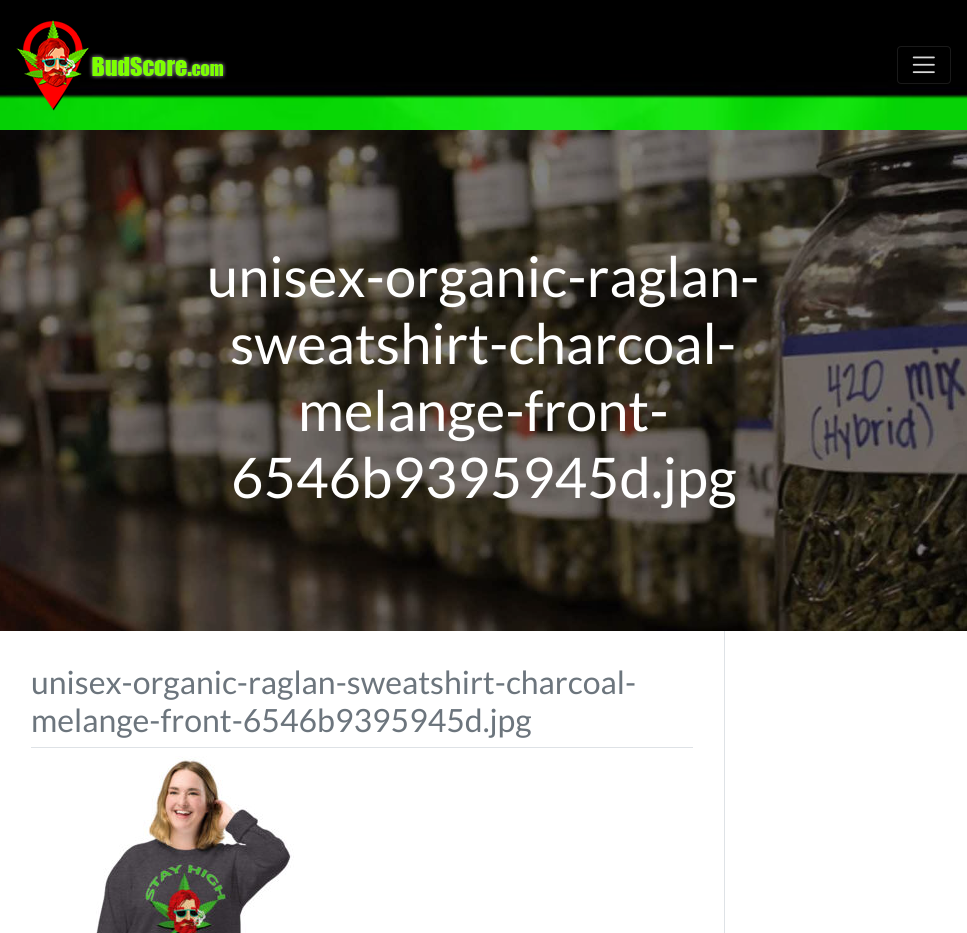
#include <cairo.h>
#include <math.h>
#include <stddef.h>

static cairo_t *ctx;

static void use_color(int r, int g, int b) {
    cairo_set_source_rgb(ctx, r / 255.0, g / 255.0, b / 255.0);
}

static void round_rect(double x, double y, double w, double h, double r) {
    cairo_new_sub_path(ctx);
    cairo_arc(ctx, x + w - r, y + h - r, r, 0, M_PI / 2);
    cairo_arc(ctx, x + r, y + h - r, r, M_PI / 2, M_PI);
    cairo_arc(ctx, x + r, y + r, r, M_PI, 1.5 * M_PI);
    cairo_arc(ctx, x + w - r, y + r, r, 1.5 * M_PI, 2 * M_PI);
    cairo_close_path(ctx);
}

static void picture(const char *path, double x, double y, double w, double h) {
    cairo_surface_t *image = cairo_image_surface_create_from_png(path);
    cairo_save(ctx);
    cairo_set_source_surface(ctx, image, x, y);
    cairo_rectangle(ctx, x, y, w, h);
    cairo_fill(ctx);
    cairo_restore(ctx);
    cairo_surface_destroy(image);
}

int main(void) {
    cairo_surface_t *surface = cairo_image_surface_create(CAIRO_FORMAT_RGB24, 967, 933);
    ctx = cairo_create(surface);
    cairo_font_options_t *options = cairo_font_options_create();
    cairo_font_options_set_hint_metrics(options, CAIRO_HINT_METRICS_OFF);
    cairo_font_options_set_hint_style(options, CAIRO_HINT_STYLE_NONE);
    cairo_set_font_options(ctx, options);
    cairo_set_miter_limit(ctx, 4);
    use_color(255, 255, 255);
    cairo_paint(ctx);
    picture("img1.png", 0, 0, 967, 130);
    picture("img2.png", 16, 20, 211, 91);
    round_rect(897.5, 46.5, 53, 37, 3.5);
    use_color(26, 26, 26);
    cairo_set_line_width(ctx, 1);
    cairo_stroke(ctx);
    picture("img3.png", 912, 56, 23, 18);
    picture("img4.png", 0, 130, 967, 501);
    cairo_select_font_face(ctx, "Lato", CAIRO_FONT_SLANT_NORMAL, CAIRO_FONT_WEIGHT_NORMAL);
    cairo_set_font_size(ctx, 56);
    use_color(255, 255, 255);
    cairo_move_to(ctx, 207, 297);
    cairo_show_text(ctx, "unisex-organic-raglan-");
    cairo_move_to(ctx, 230, 364);
    cairo_show_text(ctx, "sweatshirt-charcoal-");
    cairo_move_to(ctx, 298, 431);
    cairo_show_text(ctx, "melange-front-");
    cairo_move_to(ctx, 231, 498);
    cairo_show_text(ctx, "6546b9395945d.jpg");
    use_color(222, 226, 230);
    cairo_rectangle(ctx, 724, 631, 1, 302);
    cairo_fill(ctx);
    cairo_rectangle(ctx, 31, 747, 662, 1);
    cairo_fill(ctx);
    cairo_set_font_size(ctx, 32);
    use_color(108, 117, 125);
    cairo_move_to(ctx, 31, 694);
    cairo_show_text(ctx, "unisex-organic-raglan-sweatshirt-charcoal-");
    cairo_move_to(ctx, 31, 732);
    cairo_show_text(ctx, "melange-front-6546b9395945d.jpg");
    picture("img5.png", 96, 756, 198, 177);
    cairo_surface_write_to_png(surface, "result.png");
    cairo_font_options_destroy(options);
    cairo_destroy(ctx);
    cairo_surface_destroy(surface);
    return 0;
}
